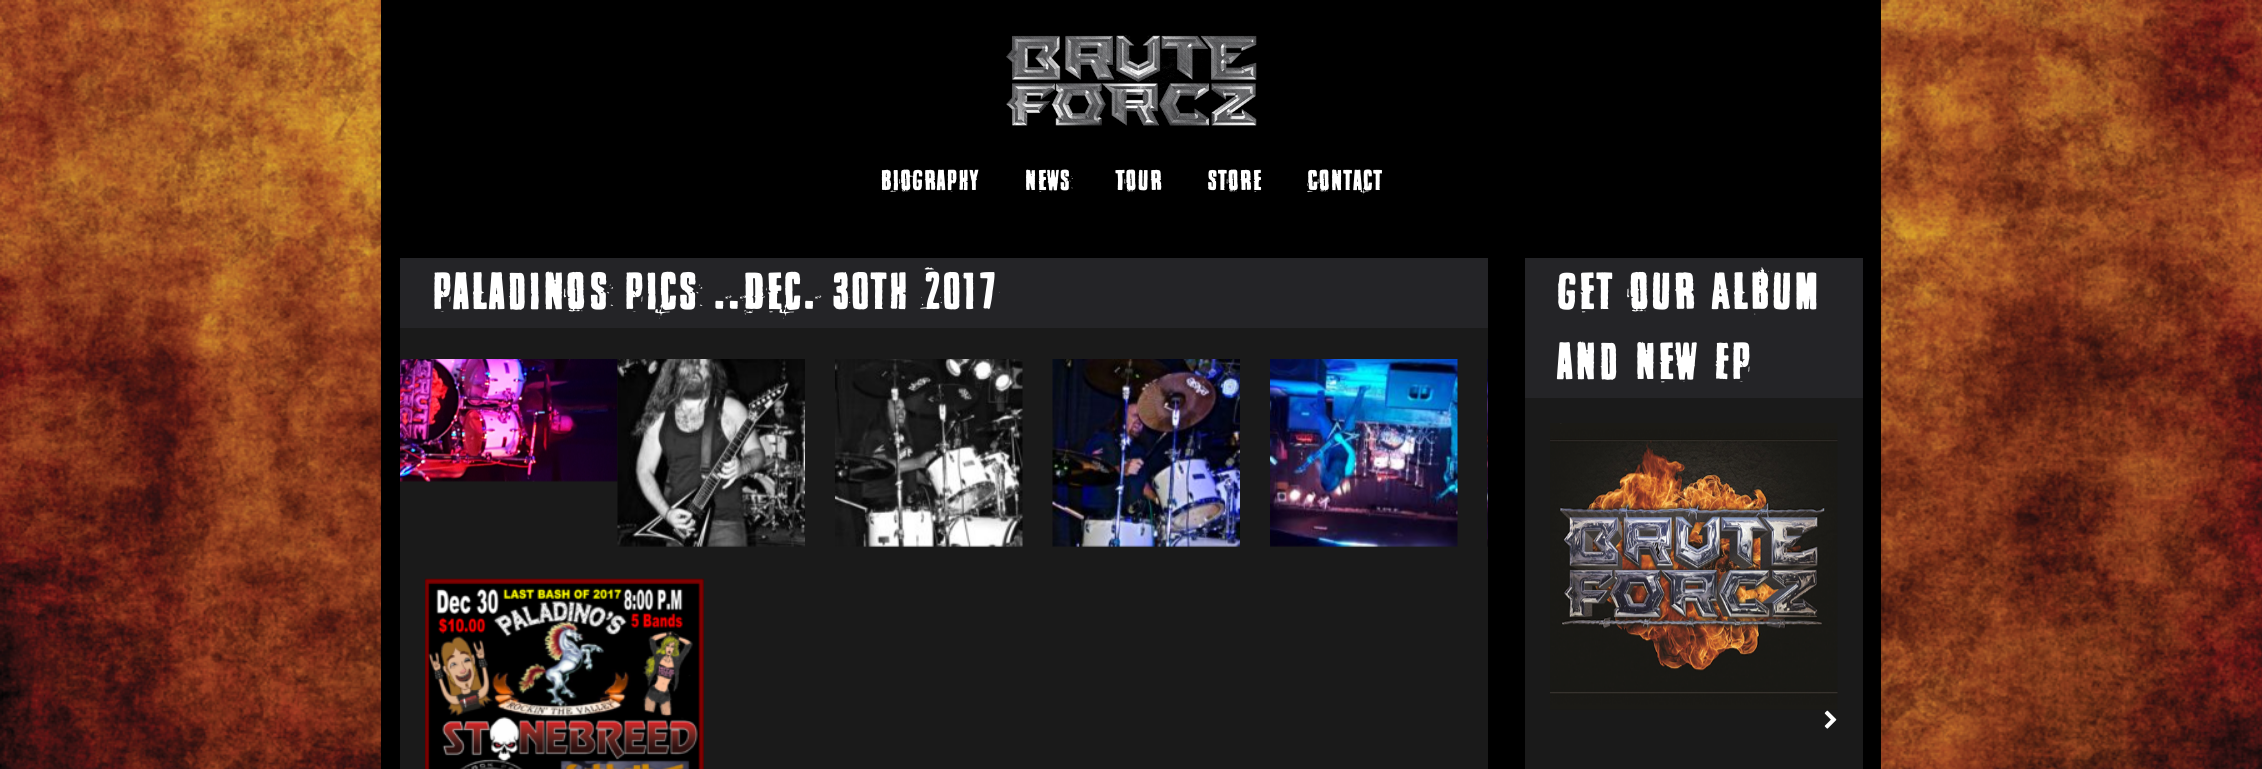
#include <cairo.h>
#include <math.h>
#include <stddef.h>

static cairo_t *ctx;

static void use_color(int r, int g, int b) {
    cairo_set_source_rgb(ctx, r / 255.0, g / 255.0, b / 255.0);
}

static void picture(const char *path, double x, double y, double w, double h) {
    cairo_surface_t *image = cairo_image_surface_create_from_png(path);
    cairo_save(ctx);
    cairo_set_source_surface(ctx, image, x, y);
    cairo_rectangle(ctx, x, y, w, h);
    cairo_fill(ctx);
    cairo_restore(ctx);
    cairo_surface_destroy(image);
}

int main(void) {
    cairo_surface_t *surface = cairo_image_surface_create(CAIRO_FORMAT_RGB24, 2262, 769);
    ctx = cairo_create(surface);
    cairo_font_options_t *options = cairo_font_options_create();
    cairo_font_options_set_hint_metrics(options, CAIRO_HINT_METRICS_OFF);
    cairo_font_options_set_hint_style(options, CAIRO_HINT_STYLE_NONE);
    cairo_set_font_options(ctx, options);
    cairo_set_miter_limit(ctx, 4);
    use_color(255, 255, 255);
    cairo_paint(ctx);
    picture("img1.png", 0, 0, 2262, 769);
    use_color(0, 0, 0);
    cairo_rectangle(ctx, 381, 0, 1500, 769);
    cairo_fill(ctx);
    picture("img2.png", 1006, 35, 251, 91);
    cairo_select_font_face(ctx, "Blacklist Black", CAIRO_FONT_SLANT_NORMAL, CAIRO_FONT_WEIGHT_NORMAL);
    cairo_set_font_size(ctx, 27.5);
    use_color(255, 255, 255);
    cairo_move_to(ctx, 880, 190);
    cairo_show_text(ctx, "Biography");
    cairo_move_to(ctx, 1024, 190);
    cairo_show_text(ctx, "News");
    cairo_move_to(ctx, 1115, 190);
    cairo_show_text(ctx, "Tour");
    cairo_move_to(ctx, 1207, 190);
    cairo_show_text(ctx, "Store");
    cairo_move_to(ctx, 1307, 190);
    cairo_show_text(ctx, "Contact");
    use_color(26, 26, 26);
    cairo_rectangle(ctx, 400, 328, 1088, 441);
    cairo_fill(ctx);
    use_color(36, 36, 39);
    cairo_rectangle(ctx, 400, 258, 1088, 70);
    cairo_fill(ctx);
    cairo_set_font_size(ctx, 50);
    use_color(255, 255, 255);
    cairo_move_to(ctx, 431, 309);
    cairo_show_text(ctx, "Paladino’s Pics ..Dec. 30th 2017");
    picture("img3.png", 400, 359, 218, 123);
    picture("img4.png", 617, 359, 188, 188);
    picture("img5.png", 835, 359, 188, 188);
    picture("img6.png", 1052, 359, 188, 188);
    picture("img7.png", 1270, 359, 188, 188);
    picture("img8.png", 1487, 359, 1, 188);
    picture("img9.png", 425, 578, 279, 191);
    use_color(36, 36, 39);
    cairo_rectangle(ctx, 1525, 258, 338, 140);
    cairo_fill(ctx);
    use_color(255, 255, 255);
    cairo_move_to(ctx, 1556, 309);
    cairo_show_text(ctx, "Get our Album");
    cairo_move_to(ctx, 1556, 379);
    cairo_show_text(ctx, "and New EP");
    use_color(26, 26, 26);
    cairo_rectangle(ctx, 1525, 398, 338, 371);
    cairo_fill(ctx);
    picture("img11.png", 1559, 423, 3, 1);
    picture("img10.png", 1550, 423, 288, 287);
    picture("img12.png", 1824, 710, 13, 19);
    cairo_surface_write_to_png(surface, "result.png");
    cairo_font_options_destroy(options);
    cairo_destroy(ctx);
    cairo_surface_destroy(surface);
    return 0;
}
